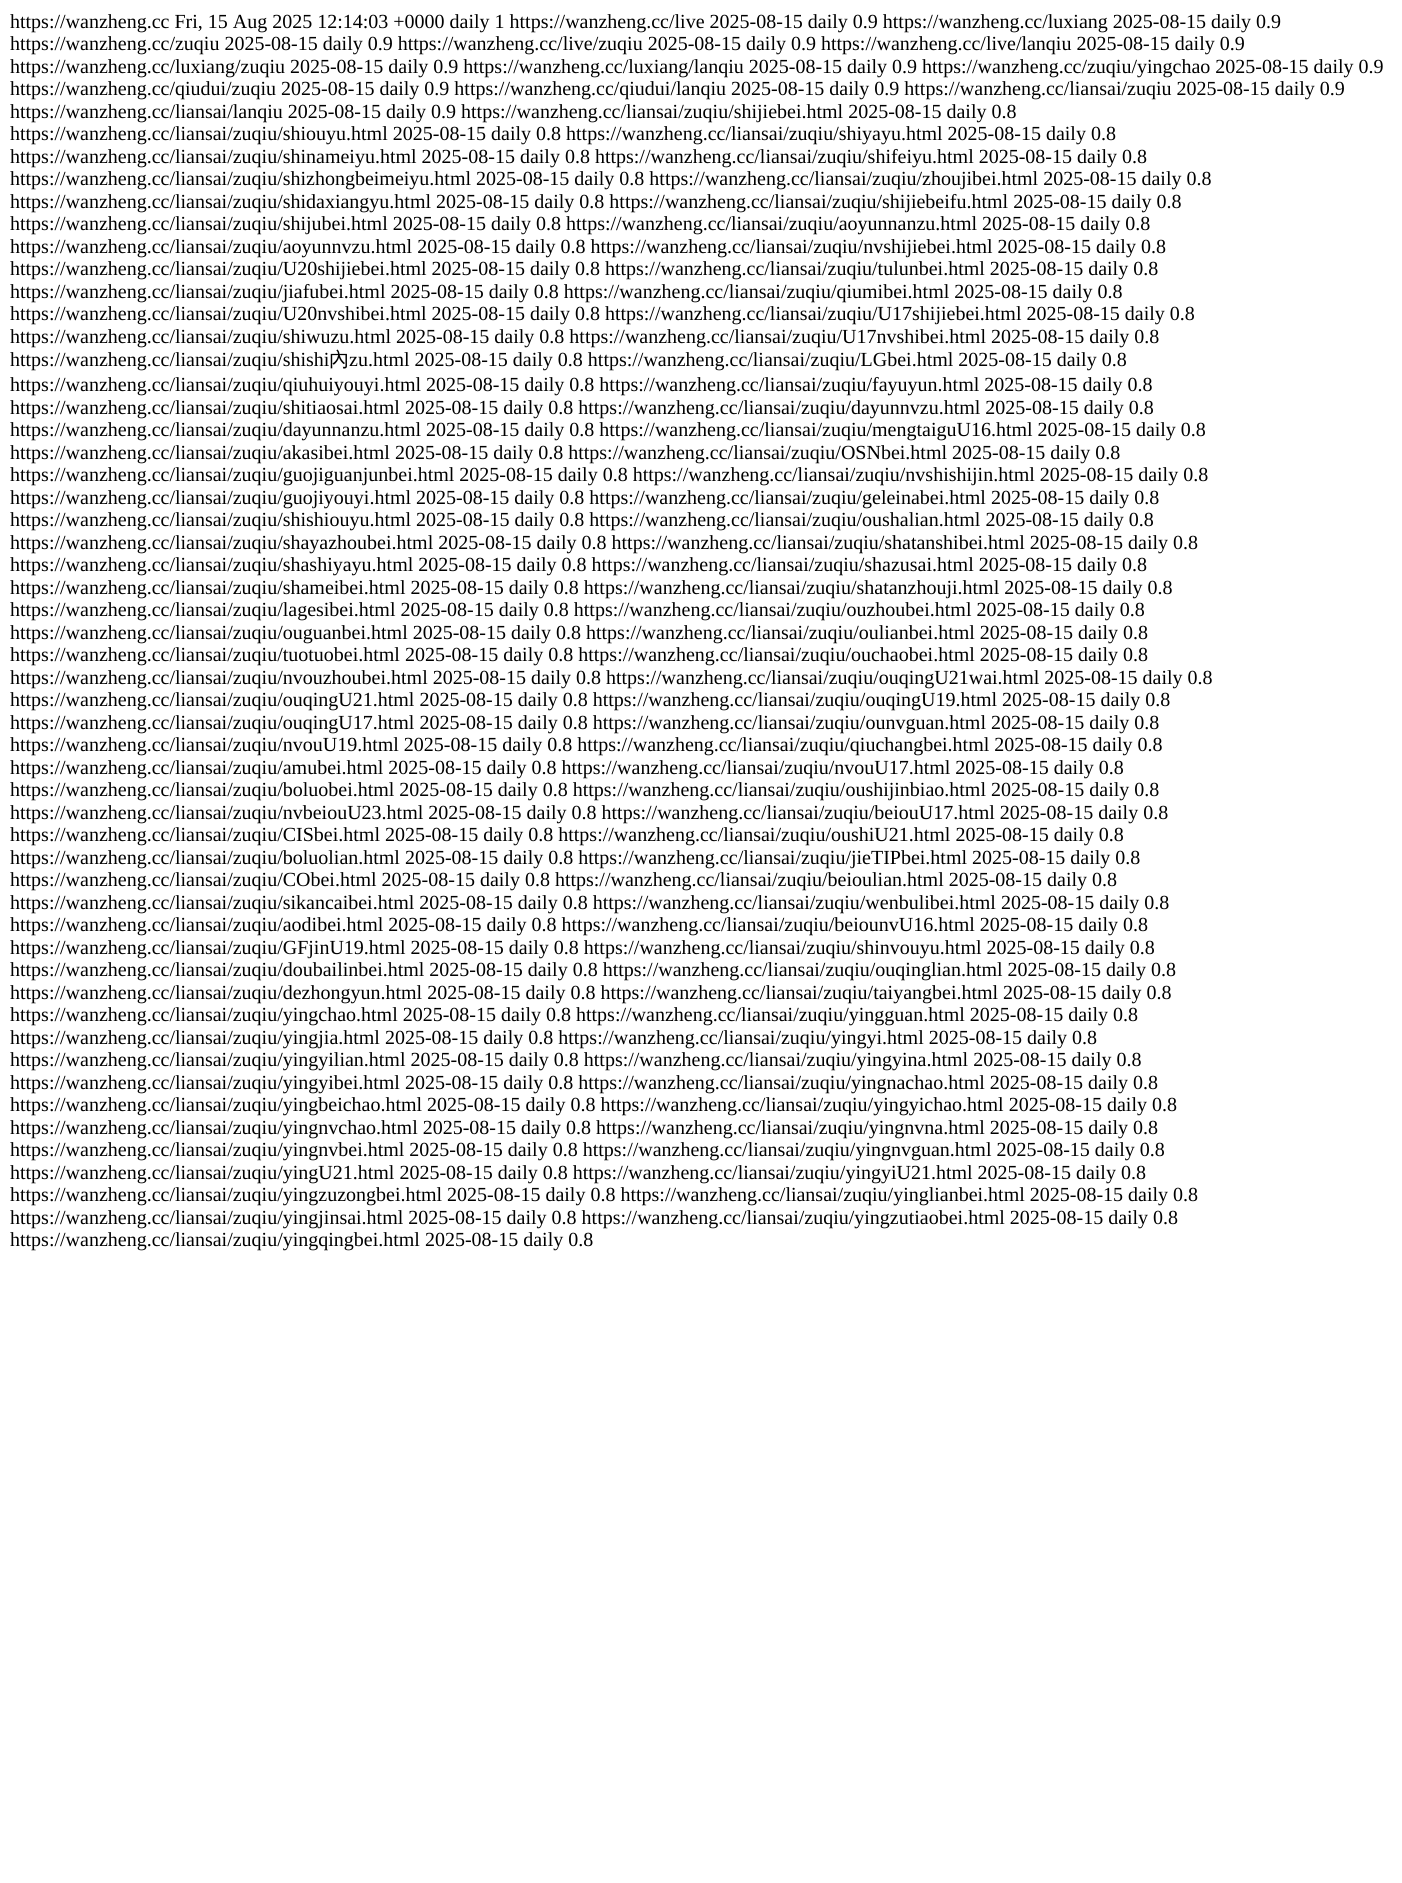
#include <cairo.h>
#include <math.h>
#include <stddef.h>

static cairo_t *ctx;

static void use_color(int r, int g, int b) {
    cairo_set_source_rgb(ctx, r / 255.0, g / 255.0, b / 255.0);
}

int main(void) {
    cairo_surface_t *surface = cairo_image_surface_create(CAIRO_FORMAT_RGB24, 1402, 1883);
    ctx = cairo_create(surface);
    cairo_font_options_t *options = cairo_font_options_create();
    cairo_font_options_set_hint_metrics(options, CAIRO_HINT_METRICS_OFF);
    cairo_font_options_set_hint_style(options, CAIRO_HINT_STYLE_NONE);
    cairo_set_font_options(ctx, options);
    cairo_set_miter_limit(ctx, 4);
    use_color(255, 255, 255);
    cairo_paint(ctx);
    cairo_select_font_face(ctx, "Liberation Serif", CAIRO_FONT_SLANT_NORMAL, CAIRO_FONT_WEIGHT_NORMAL);
    cairo_set_font_size(ctx, 20);
    use_color(0, 0, 0);
    cairo_move_to(ctx, 10, 28);
    cairo_show_text(ctx, "https://wanzheng.cc Fri, 15 Aug 2025 12:14:03 +0000 daily 1 https://wanzheng.cc/live 2025-08-15 daily 0.9 https://wanzheng.cc/luxiang 2025-08-15 daily 0.9");
    cairo_move_to(ctx, 10, 50);
    cairo_show_text(ctx, "https://wanzheng.cc/zuqiu 2025-08-15 daily 0.9 https://wanzheng.cc/live/zuqiu 2025-08-15 daily 0.9 https://wanzheng.cc/live/lanqiu 2025-08-15 daily 0.9");
    cairo_move_to(ctx, 10, 73);
    cairo_show_text(ctx, "https://wanzheng.cc/luxiang/zuqiu 2025-08-15 daily 0.9 https://wanzheng.cc/luxiang/lanqiu 2025-08-15 daily 0.9 https://wanzheng.cc/zuqiu/yingchao 2025-08-15 daily 0.9");
    cairo_move_to(ctx, 10, 95);
    cairo_show_text(ctx, "https://wanzheng.cc/qiudui/zuqiu 2025-08-15 daily 0.9 https://wanzheng.cc/qiudui/lanqiu 2025-08-15 daily 0.9 https://wanzheng.cc/liansai/zuqiu 2025-08-15 daily 0.9");
    cairo_move_to(ctx, 10, 118);
    cairo_show_text(ctx, "https://wanzheng.cc/liansai/lanqiu 2025-08-15 daily 0.9 https://wanzheng.cc/liansai/zuqiu/shijiebei.html 2025-08-15 daily 0.8");
    cairo_move_to(ctx, 10, 140);
    cairo_show_text(ctx, "https://wanzheng.cc/liansai/zuqiu/shiouyu.html 2025-08-15 daily 0.8 https://wanzheng.cc/liansai/zuqiu/shiyayu.html 2025-08-15 daily 0.8");
    cairo_move_to(ctx, 10, 163);
    cairo_show_text(ctx, "https://wanzheng.cc/liansai/zuqiu/shinameiyu.html 2025-08-15 daily 0.8 https://wanzheng.cc/liansai/zuqiu/shifeiyu.html 2025-08-15 daily 0.8");
    cairo_move_to(ctx, 10, 185);
    cairo_show_text(ctx, "https://wanzheng.cc/liansai/zuqiu/shizhongbeimeiyu.html 2025-08-15 daily 0.8 https://wanzheng.cc/liansai/zuqiu/zhoujibei.html 2025-08-15 daily 0.8");
    cairo_move_to(ctx, 10, 208);
    cairo_show_text(ctx, "https://wanzheng.cc/liansai/zuqiu/shidaxiangyu.html 2025-08-15 daily 0.8 https://wanzheng.cc/liansai/zuqiu/shijiebeifu.html 2025-08-15 daily 0.8");
    cairo_move_to(ctx, 10, 230);
    cairo_show_text(ctx, "https://wanzheng.cc/liansai/zuqiu/shijubei.html 2025-08-15 daily 0.8 https://wanzheng.cc/liansai/zuqiu/aoyunnanzu.html 2025-08-15 daily 0.8");
    cairo_move_to(ctx, 10, 253);
    cairo_show_text(ctx, "https://wanzheng.cc/liansai/zuqiu/aoyunnvzu.html 2025-08-15 daily 0.8 https://wanzheng.cc/liansai/zuqiu/nvshijiebei.html 2025-08-15 daily 0.8");
    cairo_move_to(ctx, 10, 275);
    cairo_show_text(ctx, "https://wanzheng.cc/liansai/zuqiu/U20shijiebei.html 2025-08-15 daily 0.8 https://wanzheng.cc/liansai/zuqiu/tulunbei.html 2025-08-15 daily 0.8");
    cairo_move_to(ctx, 10, 298);
    cairo_show_text(ctx, "https://wanzheng.cc/liansai/zuqiu/jiafubei.html 2025-08-15 daily 0.8 https://wanzheng.cc/liansai/zuqiu/qiumibei.html 2025-08-15 daily 0.8");
    cairo_move_to(ctx, 10, 320);
    cairo_show_text(ctx, "https://wanzheng.cc/liansai/zuqiu/U20nvshibei.html 2025-08-15 daily 0.8 https://wanzheng.cc/liansai/zuqiu/U17shijiebei.html 2025-08-15 daily 0.8");
    cairo_move_to(ctx, 10, 343);
    cairo_show_text(ctx, "https://wanzheng.cc/liansai/zuqiu/shiwuzu.html 2025-08-15 daily 0.8 https://wanzheng.cc/liansai/zuqiu/U17nvshibei.html 2025-08-15 daily 0.8");
    cairo_move_to(ctx, 10, 366);
    cairo_show_text(ctx, "https://wanzheng.cc/liansai/zuqiu/shishi");
    cairo_select_font_face(ctx, "WenQuanYi Zen Hei Medium", CAIRO_FONT_SLANT_NORMAL, CAIRO_FONT_WEIGHT_NORMAL);
    cairo_move_to(ctx, 329, 366);
    cairo_show_text(ctx, "內");
    cairo_select_font_face(ctx, "Liberation Serif", CAIRO_FONT_SLANT_NORMAL, CAIRO_FONT_WEIGHT_NORMAL);
    cairo_move_to(ctx, 349, 366);
    cairo_show_text(ctx, "zu.html 2025-08-15 daily 0.8 https://wanzheng.cc/liansai/zuqiu/LGbei.html 2025-08-15 daily 0.8");
    cairo_move_to(ctx, 10, 391);
    cairo_show_text(ctx, "https://wanzheng.cc/liansai/zuqiu/qiuhuiyouyi.html 2025-08-15 daily 0.8 https://wanzheng.cc/liansai/zuqiu/fayuyun.html 2025-08-15 daily 0.8");
    cairo_move_to(ctx, 10, 414);
    cairo_show_text(ctx, "https://wanzheng.cc/liansai/zuqiu/shitiaosai.html 2025-08-15 daily 0.8 https://wanzheng.cc/liansai/zuqiu/dayunnvzu.html 2025-08-15 daily 0.8");
    cairo_move_to(ctx, 10, 436);
    cairo_show_text(ctx, "https://wanzheng.cc/liansai/zuqiu/dayunnanzu.html 2025-08-15 daily 0.8 https://wanzheng.cc/liansai/zuqiu/mengtaiguU16.html 2025-08-15 daily 0.8");
    cairo_move_to(ctx, 10, 459);
    cairo_show_text(ctx, "https://wanzheng.cc/liansai/zuqiu/akasibei.html 2025-08-15 daily 0.8 https://wanzheng.cc/liansai/zuqiu/OSNbei.html 2025-08-15 daily 0.8");
    cairo_move_to(ctx, 10, 481);
    cairo_show_text(ctx, "https://wanzheng.cc/liansai/zuqiu/guojiguanjunbei.html 2025-08-15 daily 0.8 https://wanzheng.cc/liansai/zuqiu/nvshishijin.html 2025-08-15 daily 0.8");
    cairo_move_to(ctx, 10, 504);
    cairo_show_text(ctx, "https://wanzheng.cc/liansai/zuqiu/guojiyouyi.html 2025-08-15 daily 0.8 https://wanzheng.cc/liansai/zuqiu/geleinabei.html 2025-08-15 daily 0.8");
    cairo_move_to(ctx, 10, 526);
    cairo_show_text(ctx, "https://wanzheng.cc/liansai/zuqiu/shishiouyu.html 2025-08-15 daily 0.8 https://wanzheng.cc/liansai/zuqiu/oushalian.html 2025-08-15 daily 0.8");
    cairo_move_to(ctx, 10, 549);
    cairo_show_text(ctx, "https://wanzheng.cc/liansai/zuqiu/shayazhoubei.html 2025-08-15 daily 0.8 https://wanzheng.cc/liansai/zuqiu/shatanshibei.html 2025-08-15 daily 0.8");
    cairo_move_to(ctx, 10, 571);
    cairo_show_text(ctx, "https://wanzheng.cc/liansai/zuqiu/shashiyayu.html 2025-08-15 daily 0.8 https://wanzheng.cc/liansai/zuqiu/shazusai.html 2025-08-15 daily 0.8");
    cairo_move_to(ctx, 10, 594);
    cairo_show_text(ctx, "https://wanzheng.cc/liansai/zuqiu/shameibei.html 2025-08-15 daily 0.8 https://wanzheng.cc/liansai/zuqiu/shatanzhouji.html 2025-08-15 daily 0.8");
    cairo_move_to(ctx, 10, 616);
    cairo_show_text(ctx, "https://wanzheng.cc/liansai/zuqiu/lagesibei.html 2025-08-15 daily 0.8 https://wanzheng.cc/liansai/zuqiu/ouzhoubei.html 2025-08-15 daily 0.8");
    cairo_move_to(ctx, 10, 639);
    cairo_show_text(ctx, "https://wanzheng.cc/liansai/zuqiu/ouguanbei.html 2025-08-15 daily 0.8 https://wanzheng.cc/liansai/zuqiu/oulianbei.html 2025-08-15 daily 0.8");
    cairo_move_to(ctx, 10, 661);
    cairo_show_text(ctx, "https://wanzheng.cc/liansai/zuqiu/tuotuobei.html 2025-08-15 daily 0.8 https://wanzheng.cc/liansai/zuqiu/ouchaobei.html 2025-08-15 daily 0.8");
    cairo_move_to(ctx, 10, 684);
    cairo_show_text(ctx, "https://wanzheng.cc/liansai/zuqiu/nvouzhoubei.html 2025-08-15 daily 0.8 https://wanzheng.cc/liansai/zuqiu/ouqingU21wai.html 2025-08-15 daily 0.8");
    cairo_move_to(ctx, 10, 706);
    cairo_show_text(ctx, "https://wanzheng.cc/liansai/zuqiu/ouqingU21.html 2025-08-15 daily 0.8 https://wanzheng.cc/liansai/zuqiu/ouqingU19.html 2025-08-15 daily 0.8");
    cairo_move_to(ctx, 10, 729);
    cairo_show_text(ctx, "https://wanzheng.cc/liansai/zuqiu/ouqingU17.html 2025-08-15 daily 0.8 https://wanzheng.cc/liansai/zuqiu/ounvguan.html 2025-08-15 daily 0.8");
    cairo_move_to(ctx, 10, 751);
    cairo_show_text(ctx, "https://wanzheng.cc/liansai/zuqiu/nvouU19.html 2025-08-15 daily 0.8 https://wanzheng.cc/liansai/zuqiu/qiuchangbei.html 2025-08-15 daily 0.8");
    cairo_move_to(ctx, 10, 774);
    cairo_show_text(ctx, "https://wanzheng.cc/liansai/zuqiu/amubei.html 2025-08-15 daily 0.8 https://wanzheng.cc/liansai/zuqiu/nvouU17.html 2025-08-15 daily 0.8");
    cairo_move_to(ctx, 10, 796);
    cairo_show_text(ctx, "https://wanzheng.cc/liansai/zuqiu/boluobei.html 2025-08-15 daily 0.8 https://wanzheng.cc/liansai/zuqiu/oushijinbiao.html 2025-08-15 daily 0.8");
    cairo_move_to(ctx, 10, 819);
    cairo_show_text(ctx, "https://wanzheng.cc/liansai/zuqiu/nvbeiouU23.html 2025-08-15 daily 0.8 https://wanzheng.cc/liansai/zuqiu/beiouU17.html 2025-08-15 daily 0.8");
    cairo_move_to(ctx, 10, 841);
    cairo_show_text(ctx, "https://wanzheng.cc/liansai/zuqiu/CISbei.html 2025-08-15 daily 0.8 https://wanzheng.cc/liansai/zuqiu/oushiU21.html 2025-08-15 daily 0.8");
    cairo_move_to(ctx, 10, 864);
    cairo_show_text(ctx, "https://wanzheng.cc/liansai/zuqiu/boluolian.html 2025-08-15 daily 0.8 https://wanzheng.cc/liansai/zuqiu/jieTIPbei.html 2025-08-15 daily 0.8");
    cairo_move_to(ctx, 10, 886);
    cairo_show_text(ctx, "https://wanzheng.cc/liansai/zuqiu/CObei.html 2025-08-15 daily 0.8 https://wanzheng.cc/liansai/zuqiu/beioulian.html 2025-08-15 daily 0.8");
    cairo_move_to(ctx, 10, 909);
    cairo_show_text(ctx, "https://wanzheng.cc/liansai/zuqiu/sikancaibei.html 2025-08-15 daily 0.8 https://wanzheng.cc/liansai/zuqiu/wenbulibei.html 2025-08-15 daily 0.8");
    cairo_move_to(ctx, 10, 931);
    cairo_show_text(ctx, "https://wanzheng.cc/liansai/zuqiu/aodibei.html 2025-08-15 daily 0.8 https://wanzheng.cc/liansai/zuqiu/beiounvU16.html 2025-08-15 daily 0.8");
    cairo_move_to(ctx, 10, 954);
    cairo_show_text(ctx, "https://wanzheng.cc/liansai/zuqiu/GFjinU19.html 2025-08-15 daily 0.8 https://wanzheng.cc/liansai/zuqiu/shinvouyu.html 2025-08-15 daily 0.8");
    cairo_move_to(ctx, 10, 976);
    cairo_show_text(ctx, "https://wanzheng.cc/liansai/zuqiu/doubailinbei.html 2025-08-15 daily 0.8 https://wanzheng.cc/liansai/zuqiu/ouqinglian.html 2025-08-15 daily 0.8");
    cairo_move_to(ctx, 10, 999);
    cairo_show_text(ctx, "https://wanzheng.cc/liansai/zuqiu/dezhongyun.html 2025-08-15 daily 0.8 https://wanzheng.cc/liansai/zuqiu/taiyangbei.html 2025-08-15 daily 0.8");
    cairo_move_to(ctx, 10, 1021);
    cairo_show_text(ctx, "https://wanzheng.cc/liansai/zuqiu/yingchao.html 2025-08-15 daily 0.8 https://wanzheng.cc/liansai/zuqiu/yingguan.html 2025-08-15 daily 0.8");
    cairo_move_to(ctx, 10, 1044);
    cairo_show_text(ctx, "https://wanzheng.cc/liansai/zuqiu/yingjia.html 2025-08-15 daily 0.8 https://wanzheng.cc/liansai/zuqiu/yingyi.html 2025-08-15 daily 0.8");
    cairo_move_to(ctx, 10, 1066);
    cairo_show_text(ctx, "https://wanzheng.cc/liansai/zuqiu/yingyilian.html 2025-08-15 daily 0.8 https://wanzheng.cc/liansai/zuqiu/yingyina.html 2025-08-15 daily 0.8");
    cairo_move_to(ctx, 10, 1089);
    cairo_show_text(ctx, "https://wanzheng.cc/liansai/zuqiu/yingyibei.html 2025-08-15 daily 0.8 https://wanzheng.cc/liansai/zuqiu/yingnachao.html 2025-08-15 daily 0.8");
    cairo_move_to(ctx, 10, 1111);
    cairo_show_text(ctx, "https://wanzheng.cc/liansai/zuqiu/yingbeichao.html 2025-08-15 daily 0.8 https://wanzheng.cc/liansai/zuqiu/yingyichao.html 2025-08-15 daily 0.8");
    cairo_move_to(ctx, 10, 1134);
    cairo_show_text(ctx, "https://wanzheng.cc/liansai/zuqiu/yingnvchao.html 2025-08-15 daily 0.8 https://wanzheng.cc/liansai/zuqiu/yingnvna.html 2025-08-15 daily 0.8");
    cairo_move_to(ctx, 10, 1156);
    cairo_show_text(ctx, "https://wanzheng.cc/liansai/zuqiu/yingnvbei.html 2025-08-15 daily 0.8 https://wanzheng.cc/liansai/zuqiu/yingnvguan.html 2025-08-15 daily 0.8");
    cairo_move_to(ctx, 10, 1179);
    cairo_show_text(ctx, "https://wanzheng.cc/liansai/zuqiu/yingU21.html 2025-08-15 daily 0.8 https://wanzheng.cc/liansai/zuqiu/yingyiU21.html 2025-08-15 daily 0.8");
    cairo_move_to(ctx, 10, 1201);
    cairo_show_text(ctx, "https://wanzheng.cc/liansai/zuqiu/yingzuzongbei.html 2025-08-15 daily 0.8 https://wanzheng.cc/liansai/zuqiu/yinglianbei.html 2025-08-15 daily 0.8");
    cairo_move_to(ctx, 10, 1224);
    cairo_show_text(ctx, "https://wanzheng.cc/liansai/zuqiu/yingjinsai.html 2025-08-15 daily 0.8 https://wanzheng.cc/liansai/zuqiu/yingzutiaobei.html 2025-08-15 daily 0.8");
    cairo_move_to(ctx, 10, 1246);
    cairo_show_text(ctx, "https://wanzheng.cc/liansai/zuqiu/yingqingbei.html 2025-08-15 daily 0.8");
    cairo_surface_write_to_png(surface, "result.png");
    cairo_font_options_destroy(options);
    cairo_destroy(ctx);
    cairo_surface_destroy(surface);
    return 0;
}
